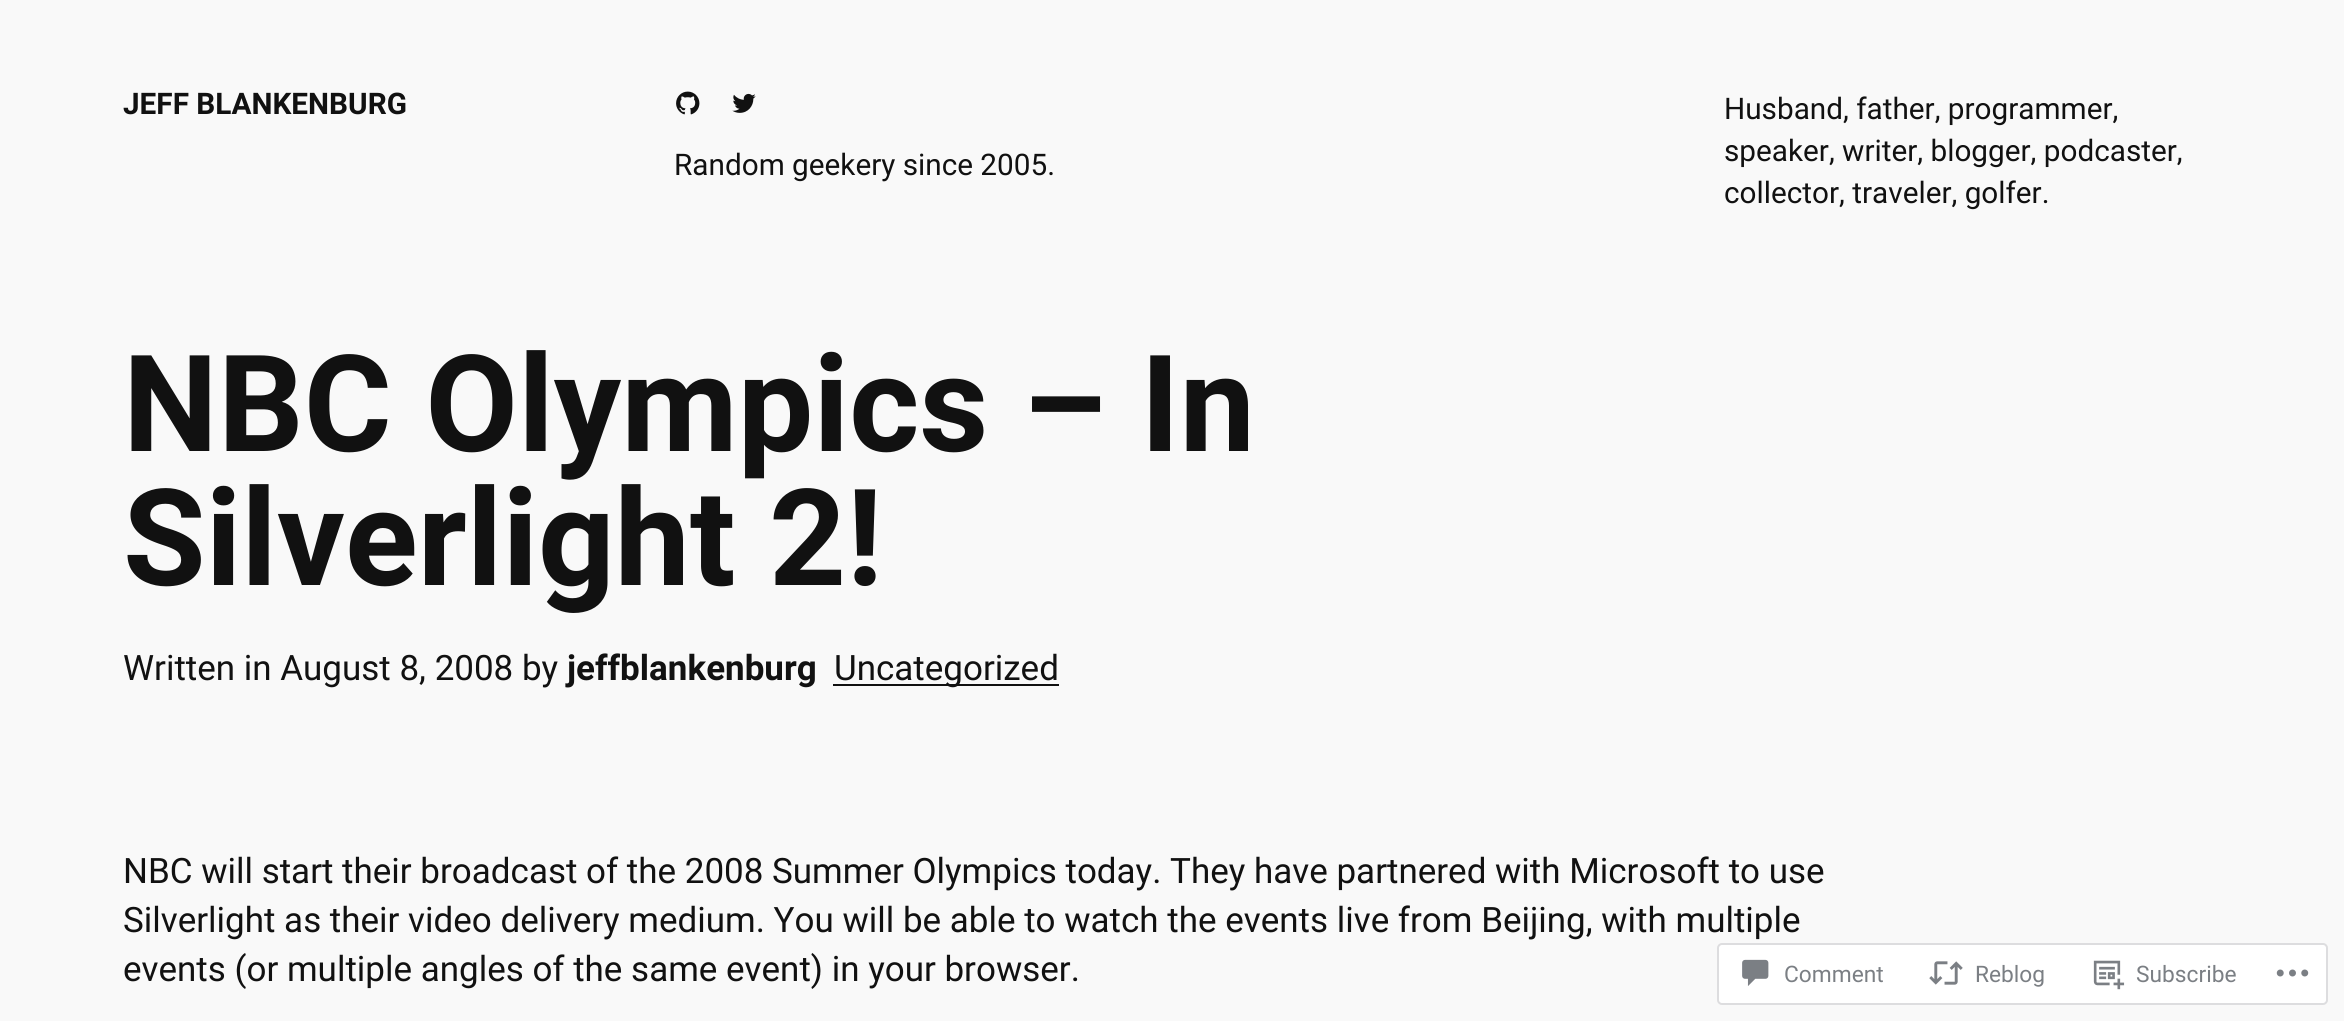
#include <cairo.h>
#include <math.h>
#include <stddef.h>

static cairo_t *ctx;

static void use_color(int r, int g, int b) {
    cairo_set_source_rgb(ctx, r / 255.0, g / 255.0, b / 255.0);
}

static void round_rect(double x, double y, double w, double h, double r) {
    cairo_new_sub_path(ctx);
    cairo_arc(ctx, x + w - r, y + h - r, r, 0, M_PI / 2);
    cairo_arc(ctx, x + r, y + h - r, r, M_PI / 2, M_PI);
    cairo_arc(ctx, x + r, y + r, r, M_PI, 1.5 * M_PI);
    cairo_arc(ctx, x + w - r, y + r, r, 1.5 * M_PI, 2 * M_PI);
    cairo_close_path(ctx);
}

static void picture(const char *path, double x, double y, double w, double h) {
    cairo_surface_t *image = cairo_image_surface_create_from_png(path);
    cairo_save(ctx);
    cairo_set_source_surface(ctx, image, x, y);
    cairo_rectangle(ctx, x, y, w, h);
    cairo_fill(ctx);
    cairo_restore(ctx);
    cairo_surface_destroy(image);
}

int main(void) {
    cairo_surface_t *surface = cairo_image_surface_create(CAIRO_FORMAT_RGB24, 2344, 1021);
    ctx = cairo_create(surface);
    cairo_font_options_t *options = cairo_font_options_create();
    cairo_font_options_set_hint_metrics(options, CAIRO_HINT_METRICS_OFF);
    cairo_font_options_set_hint_style(options, CAIRO_HINT_STYLE_NONE);
    cairo_set_font_options(ctx, options);
    cairo_set_miter_limit(ctx, 4);
    use_color(249, 249, 249);
    cairo_paint(ctx);
    cairo_select_font_face(ctx, "Roboto", CAIRO_FONT_SLANT_NORMAL, CAIRO_FONT_WEIGHT_BOLD);
    cairo_set_font_size(ctx, 29.75);
    use_color(17, 17, 17);
    cairo_move_to(ctx, 123, 114);
    cairo_show_text(ctx, "JEFF BLANKENBURG");
    picture("img1.png", 676, 91, 24, 24);
    picture("img2.png", 732, 93, 24, 20);
    cairo_select_font_face(ctx, "Roboto", CAIRO_FONT_SLANT_NORMAL, CAIRO_FONT_WEIGHT_NORMAL);
    cairo_move_to(ctx, 674, 175);
    cairo_show_text(ctx, "Random geekery since 2005.");
    cairo_move_to(ctx, 1724, 119);
    cairo_show_text(ctx, "Husband, father, programmer,");
    cairo_move_to(ctx, 1724, 161);
    cairo_show_text(ctx, "speaker, writer, blogger, podcaster,");
    cairo_move_to(ctx, 1724, 203);
    cairo_show_text(ctx, "collector, traveler, golfer.");
    cairo_select_font_face(ctx, "Roboto", CAIRO_FONT_SLANT_NORMAL, CAIRO_FONT_WEIGHT_BOLD);
    cairo_set_font_size(ctx, 134.5);
    cairo_move_to(ctx, 123, 451);
    cairo_show_text(ctx, "NBC Olympics – In");
    cairo_move_to(ctx, 123, 585);
    cairo_show_text(ctx, "Silverlight 2!");
    cairo_select_font_face(ctx, "Roboto", CAIRO_FONT_SLANT_NORMAL, CAIRO_FONT_WEIGHT_NORMAL);
    cairo_set_font_size(ctx, 35);
    cairo_move_to(ctx, 123, 680);
    cairo_show_text(ctx, "Written in August 8, 2008 by");
    cairo_select_font_face(ctx, "Roboto", CAIRO_FONT_SLANT_NORMAL, CAIRO_FONT_WEIGHT_BOLD);
    cairo_move_to(ctx, 567, 680);
    cairo_show_text(ctx, "jeffblankenburg");
    cairo_rectangle(ctx, 833, 684, 226, 2);
    cairo_fill(ctx);
    cairo_select_font_face(ctx, "Roboto", CAIRO_FONT_SLANT_NORMAL, CAIRO_FONT_WEIGHT_NORMAL);
    cairo_move_to(ctx, 834, 680);
    cairo_show_text(ctx, "Uncategorized");
    cairo_move_to(ctx, 123, 883);
    cairo_show_text(ctx, "NBC will start their broadcast of the 2008 Summer Olympics today. They have partnered with Microsoft to use");
    cairo_move_to(ctx, 123, 932);
    cairo_show_text(ctx, "Silverlight as their video delivery medium. You will be able to watch the events live from Beijing, with multiple");
    cairo_move_to(ctx, 123, 981);
    cairo_show_text(ctx, "events (or multiple angles of the same event) in your browser.");
    use_color(255, 255, 255);
    round_rect(1718, 944, 609, 60, 4);
    cairo_fill_preserve(ctx);
    use_color(221, 221, 223);
    cairo_stroke(ctx);
    picture("img3.png", 1742, 959, 27, 27);
    cairo_set_font_size(ctx, 22.75);
    use_color(123, 127, 132);
    cairo_move_to(ctx, 1784, 982);
    cairo_show_text(ctx, "Comment");
    picture("img4.png", 1929, 961, 34, 24);
    cairo_move_to(ctx, 1975, 982);
    cairo_show_text(ctx, "Reblog");
    picture("img5.png", 2093, 960, 32, 30);
    cairo_move_to(ctx, 2136, 982);
    cairo_show_text(ctx, "Subscribe");
    picture("img6.png", 2276, 969, 33, 8);
    cairo_surface_write_to_png(surface, "result.png");
    cairo_font_options_destroy(options);
    cairo_destroy(ctx);
    cairo_surface_destroy(surface);
    return 0;
}
